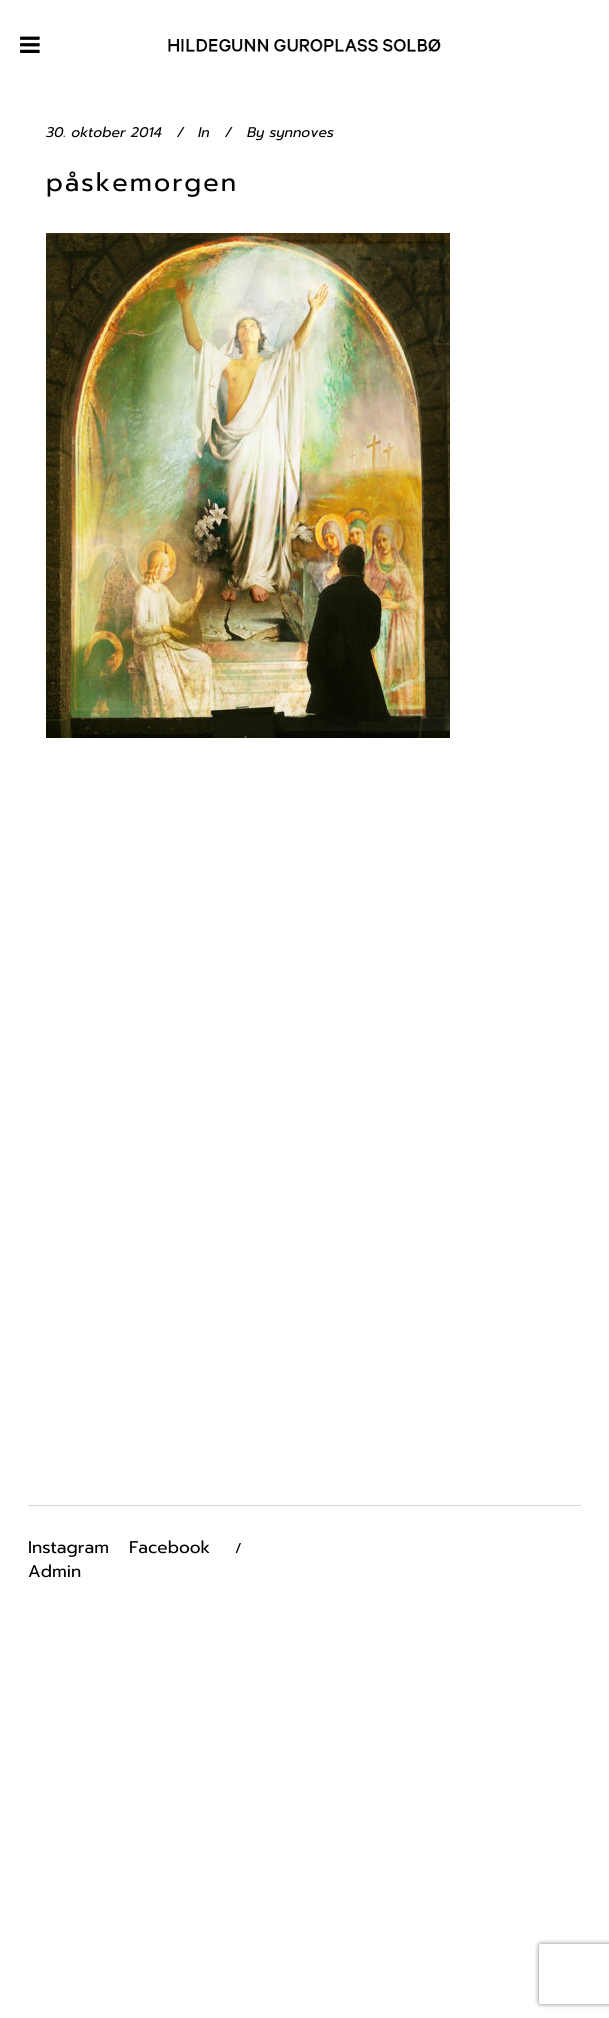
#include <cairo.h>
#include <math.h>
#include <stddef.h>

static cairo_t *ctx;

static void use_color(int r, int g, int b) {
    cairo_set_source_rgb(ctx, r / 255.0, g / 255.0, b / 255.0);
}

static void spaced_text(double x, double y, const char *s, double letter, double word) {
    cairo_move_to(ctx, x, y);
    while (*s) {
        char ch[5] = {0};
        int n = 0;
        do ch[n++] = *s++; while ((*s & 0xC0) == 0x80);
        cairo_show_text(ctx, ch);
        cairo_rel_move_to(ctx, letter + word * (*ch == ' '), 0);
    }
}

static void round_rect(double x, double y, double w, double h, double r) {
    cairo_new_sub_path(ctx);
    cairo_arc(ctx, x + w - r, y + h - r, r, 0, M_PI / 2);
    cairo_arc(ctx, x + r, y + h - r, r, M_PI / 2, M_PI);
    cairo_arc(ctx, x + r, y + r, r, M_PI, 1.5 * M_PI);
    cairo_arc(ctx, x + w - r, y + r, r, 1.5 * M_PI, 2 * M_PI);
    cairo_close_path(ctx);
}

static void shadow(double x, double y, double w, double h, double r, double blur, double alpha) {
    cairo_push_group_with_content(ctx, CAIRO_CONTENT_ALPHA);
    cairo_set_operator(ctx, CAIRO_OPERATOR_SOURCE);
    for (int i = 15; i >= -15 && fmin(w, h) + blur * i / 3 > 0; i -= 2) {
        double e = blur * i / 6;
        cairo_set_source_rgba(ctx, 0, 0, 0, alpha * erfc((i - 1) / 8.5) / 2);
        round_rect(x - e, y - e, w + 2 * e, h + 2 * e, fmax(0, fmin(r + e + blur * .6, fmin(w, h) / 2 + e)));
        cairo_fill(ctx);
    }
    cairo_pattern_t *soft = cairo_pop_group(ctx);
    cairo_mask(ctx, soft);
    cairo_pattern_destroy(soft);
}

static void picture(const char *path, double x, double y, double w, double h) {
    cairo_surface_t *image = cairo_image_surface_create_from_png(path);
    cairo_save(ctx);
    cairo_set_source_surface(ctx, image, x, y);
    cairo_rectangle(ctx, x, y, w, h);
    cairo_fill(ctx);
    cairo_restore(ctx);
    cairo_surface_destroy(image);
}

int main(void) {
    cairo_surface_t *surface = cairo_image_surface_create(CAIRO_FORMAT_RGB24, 609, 2018);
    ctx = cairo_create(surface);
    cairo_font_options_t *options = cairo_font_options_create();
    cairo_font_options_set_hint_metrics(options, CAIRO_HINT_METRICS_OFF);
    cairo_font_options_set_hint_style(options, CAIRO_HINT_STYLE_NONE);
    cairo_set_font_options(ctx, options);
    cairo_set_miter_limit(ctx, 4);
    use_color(255, 255, 255);
    cairo_paint(ctx);
    picture("img1.png", 20, 36, 20, 17);
    picture("img2.png", 168, 39, 273, 13);
    cairo_select_font_face(ctx, "Prompt", CAIRO_FONT_SLANT_ITALIC, CAIRO_FONT_WEIGHT_NORMAL);
    cairo_set_font_size(ctx, 14);
    use_color(0, 0, 0);
    cairo_move_to(ctx, 46, 137);
    cairo_show_text(ctx, "30. oktober 2014");
    cairo_move_to(ctx, 177, 137);
    cairo_show_text(ctx, "/");
    cairo_move_to(ctx, 198, 137);
    cairo_show_text(ctx, "In");
    cairo_move_to(ctx, 225, 137);
    cairo_show_text(ctx, "/");
    cairo_move_to(ctx, 247, 137);
    cairo_show_text(ctx, "By synnoves");
    cairo_select_font_face(ctx, "Prompt", CAIRO_FONT_SLANT_NORMAL, CAIRO_FONT_WEIGHT_NORMAL);
    cairo_set_font_size(ctx, 25.5);
    spaced_text(46, 191, "påskemorgen", 2, 0);
    picture("img3.png", 46, 233, 404, 505);
    use_color(215, 215, 215);
    cairo_rectangle(ctx, 28, 1505, 553, 1);
    cairo_fill(ctx);
    cairo_set_font_size(ctx, 17);
    use_color(0, 0, 0);
    cairo_move_to(ctx, 28, 1553);
    cairo_show_text(ctx, "Instagram");
    cairo_move_to(ctx, 129, 1553);
    cairo_show_text(ctx, "Facebook");
    cairo_set_font_size(ctx, 14);
    cairo_move_to(ctx, 235, 1553);
    cairo_show_text(ctx, "/");
    cairo_set_font_size(ctx, 17);
    cairo_move_to(ctx, 28, 1577);
    cairo_show_text(ctx, "Admin");
    cairo_save(ctx);
    cairo_set_fill_rule(ctx, CAIRO_FILL_RULE_EVEN_ODD);
    cairo_new_path(ctx);
    cairo_move_to(ctx, 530, 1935);
    cairo_line_to(ctx, 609, 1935);
    cairo_line_to(ctx, 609, 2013);
    cairo_line_to(ctx, 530, 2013);
    cairo_close_path(ctx);
    cairo_move_to(ctx, 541, 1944);
    cairo_line_to(ctx, 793, 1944);
    cairo_curve_to(ctx, 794, 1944, 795, 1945, 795, 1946);
    cairo_line_to(ctx, 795, 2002);
    cairo_curve_to(ctx, 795, 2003, 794, 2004, 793, 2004);
    cairo_line_to(ctx, 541, 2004);
    cairo_curve_to(ctx, 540, 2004, 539, 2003, 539, 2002);
    cairo_line_to(ctx, 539, 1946);
    cairo_curve_to(ctx, 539, 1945, 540, 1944, 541, 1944);
    cairo_close_path(ctx);
    cairo_clip(ctx);
    use_color(128, 128, 128);
    shadow(539, 1944, 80, 60, 2, 2.5, 1);
    cairo_restore(ctx);
    cairo_surface_write_to_png(surface, "result.png");
    cairo_font_options_destroy(options);
    cairo_destroy(ctx);
    cairo_surface_destroy(surface);
    return 0;
}
